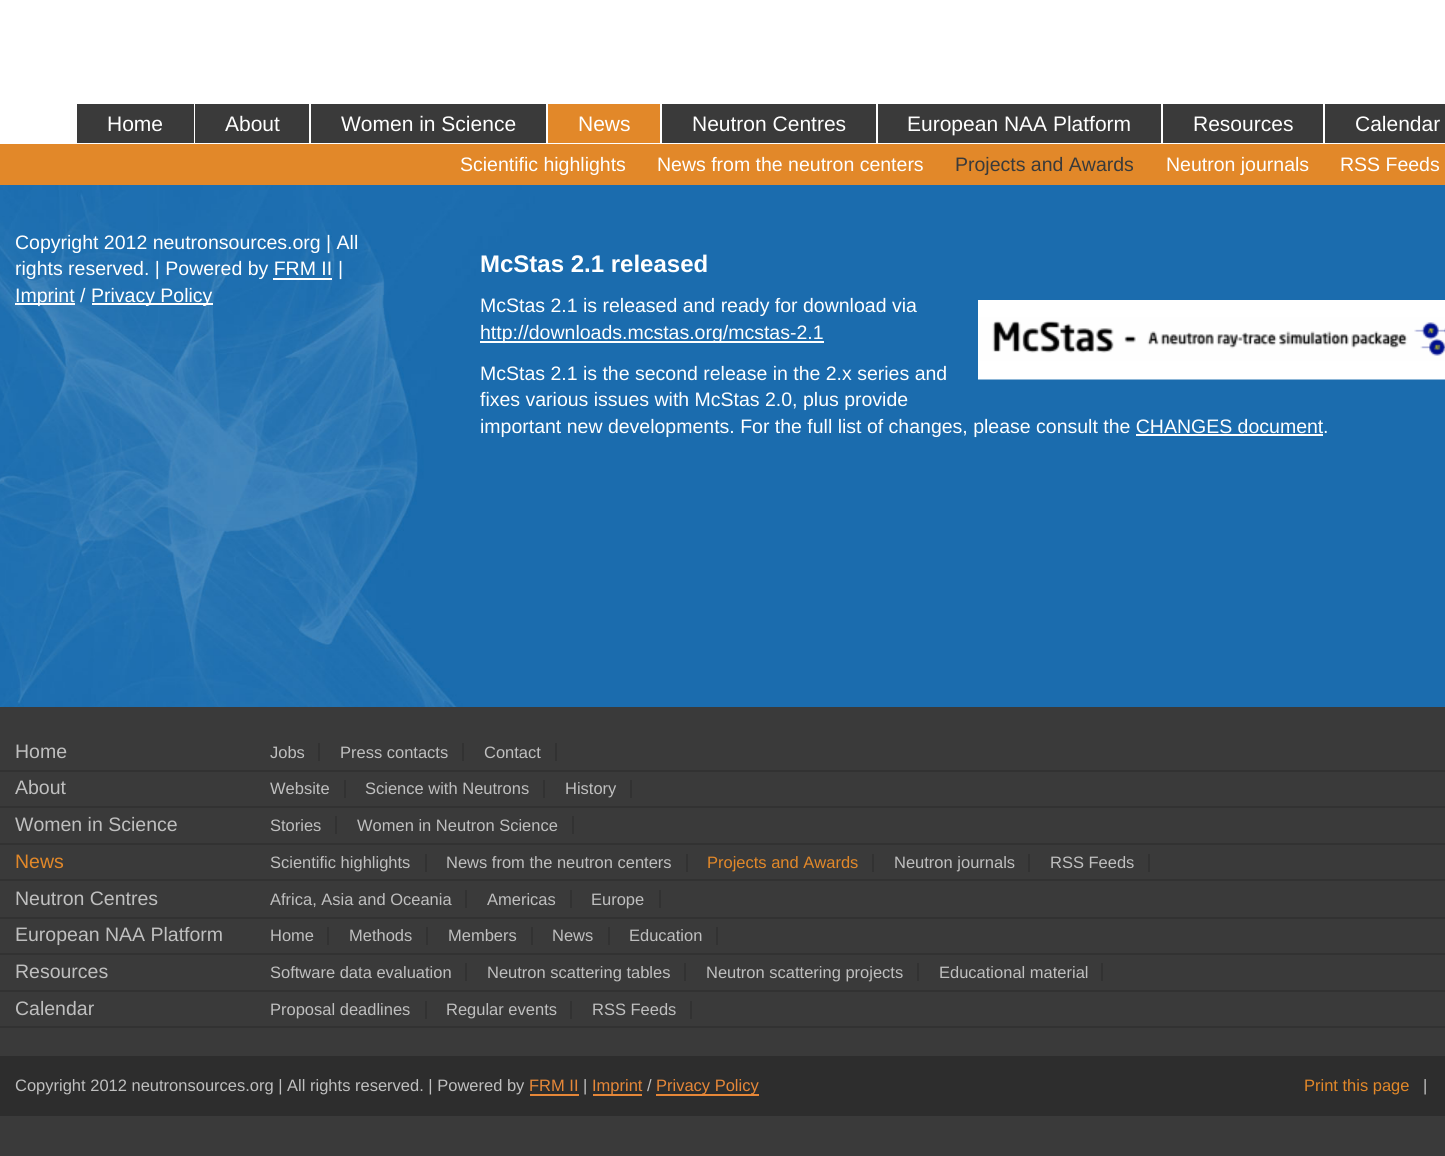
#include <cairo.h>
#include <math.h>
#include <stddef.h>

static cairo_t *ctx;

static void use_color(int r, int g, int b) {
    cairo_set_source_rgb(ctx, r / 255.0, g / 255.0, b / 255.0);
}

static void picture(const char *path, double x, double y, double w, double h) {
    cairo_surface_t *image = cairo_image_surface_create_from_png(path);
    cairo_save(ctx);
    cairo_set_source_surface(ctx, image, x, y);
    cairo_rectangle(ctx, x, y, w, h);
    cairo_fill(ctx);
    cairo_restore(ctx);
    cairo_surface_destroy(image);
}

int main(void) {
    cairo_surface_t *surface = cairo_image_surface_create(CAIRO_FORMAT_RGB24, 1445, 1156);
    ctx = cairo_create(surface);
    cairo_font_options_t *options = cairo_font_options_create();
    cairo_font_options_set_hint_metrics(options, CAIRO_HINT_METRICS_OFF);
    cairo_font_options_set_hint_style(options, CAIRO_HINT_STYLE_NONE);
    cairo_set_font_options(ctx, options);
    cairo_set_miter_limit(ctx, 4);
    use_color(255, 255, 255);
    cairo_paint(ctx);
    picture("img1.png", 0, 185, 1445, 522);
    use_color(58, 58, 58);
    cairo_rectangle(ctx, 77, 104, 117, 39);
    cairo_fill(ctx);
    cairo_select_font_face(ctx, "Arimo", CAIRO_FONT_SLANT_NORMAL, CAIRO_FONT_WEIGHT_NORMAL);
    cairo_set_font_size(ctx, 21);
    use_color(255, 255, 255);
    cairo_move_to(ctx, 107, 131);
    cairo_show_text(ctx, "Home");
    use_color(58, 58, 58);
    cairo_rectangle(ctx, 195, 104, 114, 39);
    cairo_fill(ctx);
    use_color(255, 255, 255);
    cairo_move_to(ctx, 225, 131);
    cairo_show_text(ctx, "About");
    use_color(58, 58, 58);
    cairo_rectangle(ctx, 311, 104, 235, 39);
    cairo_fill(ctx);
    use_color(255, 255, 255);
    cairo_move_to(ctx, 341, 131);
    cairo_show_text(ctx, "Women in Science");
    use_color(226, 136, 41);
    cairo_rectangle(ctx, 548, 104, 112, 39);
    cairo_fill(ctx);
    use_color(255, 255, 255);
    cairo_move_to(ctx, 578, 131);
    cairo_show_text(ctx, "News");
    use_color(58, 58, 58);
    cairo_rectangle(ctx, 662, 104, 214, 39);
    cairo_fill(ctx);
    use_color(255, 255, 255);
    cairo_move_to(ctx, 692, 131);
    cairo_show_text(ctx, "Neutron Centres");
    use_color(58, 58, 58);
    cairo_rectangle(ctx, 878, 104, 283, 39);
    cairo_fill(ctx);
    use_color(255, 255, 255);
    cairo_move_to(ctx, 907, 131);
    cairo_show_text(ctx, "European NAA Platform");
    use_color(58, 58, 58);
    cairo_rectangle(ctx, 1163, 104, 160, 39);
    cairo_fill(ctx);
    use_color(255, 255, 255);
    cairo_move_to(ctx, 1193, 131);
    cairo_show_text(ctx, "Resources");
    use_color(58, 58, 58);
    cairo_rectangle(ctx, 1325, 104, 120, 39);
    cairo_fill(ctx);
    use_color(255, 255, 255);
    cairo_move_to(ctx, 1355, 131);
    cairo_show_text(ctx, "Calendar");
    use_color(226, 136, 41);
    cairo_rectangle(ctx, 0, 144, 1445, 41);
    cairo_fill(ctx);
    cairo_set_font_size(ctx, 19.5);
    use_color(255, 255, 255);
    cairo_move_to(ctx, 460, 171);
    cairo_show_text(ctx, "Scientific highlights");
    cairo_move_to(ctx, 657, 171);
    cairo_show_text(ctx, "News from the neutron centers");
    use_color(58, 58, 58);
    cairo_move_to(ctx, 955, 171);
    cairo_show_text(ctx, "Projects and Awards");
    use_color(255, 255, 255);
    cairo_move_to(ctx, 1166, 171);
    cairo_show_text(ctx, "Neutron journals");
    cairo_move_to(ctx, 1340, 171);
    cairo_show_text(ctx, "RSS Feeds");
    cairo_move_to(ctx, 15, 249);
    cairo_show_text(ctx, "Copyright 2012 neutronsources.org | All");
    cairo_move_to(ctx, 15, 275);
    cairo_show_text(ctx, "rights reserved. | Powered by FRM II");
    cairo_move_to(ctx, 338, 275);
    cairo_show_text(ctx, "|");
    cairo_rectangle(ctx, 273, 278, 59, 2);
    cairo_fill(ctx);
    cairo_rectangle(ctx, 15, 303, 60, 2);
    cairo_fill(ctx);
    cairo_move_to(ctx, 15, 302);
    cairo_show_text(ctx, "Imprint");
    cairo_move_to(ctx, 80, 302);
    cairo_show_text(ctx, "/");
    cairo_rectangle(ctx, 92, 303, 121, 2);
    cairo_fill(ctx);
    cairo_move_to(ctx, 91, 302);
    cairo_show_text(ctx, "Privacy Policy");
    cairo_select_font_face(ctx, "Arimo", CAIRO_FONT_SLANT_NORMAL, CAIRO_FONT_WEIGHT_BOLD);
    cairo_set_font_size(ctx, 24);
    cairo_move_to(ctx, 480, 272);
    cairo_show_text(ctx, "McStas 2.1 released");
    cairo_select_font_face(ctx, "Arimo", CAIRO_FONT_SLANT_NORMAL, CAIRO_FONT_WEIGHT_NORMAL);
    cairo_set_font_size(ctx, 19.5);
    cairo_move_to(ctx, 480, 312);
    cairo_show_text(ctx, "McStas 2.1 is released and ready for download via");
    cairo_rectangle(ctx, 480, 341, 344, 2);
    cairo_fill(ctx);
    cairo_move_to(ctx, 480, 339);
    cairo_show_text(ctx, "http://downloads.mcstas.org/mcstas-2.1");
    picture("img2.png", 978, 300, 467, 80);
    cairo_move_to(ctx, 480, 380);
    cairo_show_text(ctx, "McStas 2.1 is the second release in the 2.x series and");
    cairo_move_to(ctx, 480, 406);
    cairo_show_text(ctx, "fixes various issues with McStas 2.0, plus provide");
    cairo_move_to(ctx, 480, 433);
    cairo_show_text(ctx, "important new developments. For the full list of changes, please consult the CHANGES document");
    cairo_move_to(ctx, 1323, 433);
    cairo_show_text(ctx, ".");
    cairo_rectangle(ctx, 1136, 434, 187, 2);
    cairo_fill(ctx);
    use_color(58, 58, 58);
    cairo_rectangle(ctx, 0, 707, 1445, 449);
    cairo_fill(ctx);
    use_color(50, 50, 50);
    cairo_rectangle(ctx, 0, 770, 1445, 2);
    cairo_fill(ctx);
    use_color(191, 191, 191);
    cairo_move_to(ctx, 15, 758);
    cairo_show_text(ctx, "Home");
    cairo_set_font_size(ctx, 16.5);
    cairo_move_to(ctx, 270, 758);
    cairo_show_text(ctx, "Jobs");
    use_color(50, 50, 50);
    cairo_rectangle(ctx, 318, 743, 2, 18);
    cairo_fill(ctx);
    use_color(191, 191, 191);
    cairo_move_to(ctx, 340, 758);
    cairo_show_text(ctx, "Press contacts");
    use_color(50, 50, 50);
    cairo_rectangle(ctx, 462, 743, 2, 18);
    cairo_fill(ctx);
    use_color(191, 191, 191);
    cairo_move_to(ctx, 484, 758);
    cairo_show_text(ctx, "Contact");
    use_color(50, 50, 50);
    cairo_rectangle(ctx, 555, 743, 2, 18);
    cairo_fill(ctx);
    cairo_rectangle(ctx, 0, 806, 1445, 2);
    cairo_fill(ctx);
    cairo_set_font_size(ctx, 19.5);
    use_color(191, 191, 191);
    cairo_move_to(ctx, 15, 794);
    cairo_show_text(ctx, "About");
    cairo_set_font_size(ctx, 16.5);
    cairo_move_to(ctx, 270, 794);
    cairo_show_text(ctx, "Website");
    use_color(50, 50, 50);
    cairo_rectangle(ctx, 344, 780, 2, 18);
    cairo_fill(ctx);
    use_color(191, 191, 191);
    cairo_move_to(ctx, 365, 794);
    cairo_show_text(ctx, "Science with Neutrons");
    use_color(50, 50, 50);
    cairo_rectangle(ctx, 543, 780, 2, 18);
    cairo_fill(ctx);
    use_color(191, 191, 191);
    cairo_move_to(ctx, 565, 794);
    cairo_show_text(ctx, "History");
    use_color(50, 50, 50);
    cairo_rectangle(ctx, 630, 780, 2, 18);
    cairo_fill(ctx);
    cairo_rectangle(ctx, 0, 843, 1445, 2);
    cairo_fill(ctx);
    cairo_set_font_size(ctx, 19.5);
    use_color(191, 191, 191);
    cairo_move_to(ctx, 15, 831);
    cairo_show_text(ctx, "Women in Science");
    cairo_set_font_size(ctx, 16.5);
    cairo_move_to(ctx, 270, 831);
    cairo_show_text(ctx, "Stories");
    use_color(50, 50, 50);
    cairo_rectangle(ctx, 335, 816, 2, 18);
    cairo_fill(ctx);
    use_color(191, 191, 191);
    cairo_move_to(ctx, 357, 831);
    cairo_show_text(ctx, "Women in Neutron Science");
    use_color(50, 50, 50);
    cairo_rectangle(ctx, 572, 816, 2, 18);
    cairo_fill(ctx);
    cairo_rectangle(ctx, 0, 879, 1445, 2);
    cairo_fill(ctx);
    cairo_set_font_size(ctx, 19.5);
    use_color(226, 136, 41);
    cairo_move_to(ctx, 15, 868);
    cairo_show_text(ctx, "News");
    cairo_set_font_size(ctx, 16.5);
    use_color(191, 191, 191);
    cairo_move_to(ctx, 270, 868);
    cairo_show_text(ctx, "Scientific highlights");
    use_color(50, 50, 50);
    cairo_rectangle(ctx, 425, 854, 2, 18);
    cairo_fill(ctx);
    use_color(191, 191, 191);
    cairo_move_to(ctx, 446, 868);
    cairo_show_text(ctx, "News from the neutron centers");
    use_color(50, 50, 50);
    cairo_rectangle(ctx, 686, 854, 2, 18);
    cairo_fill(ctx);
    use_color(226, 136, 41);
    cairo_move_to(ctx, 707, 868);
    cairo_show_text(ctx, "Projects and Awards");
    use_color(50, 50, 50);
    cairo_rectangle(ctx, 872, 854, 2, 18);
    cairo_fill(ctx);
    use_color(191, 191, 191);
    cairo_move_to(ctx, 894, 868);
    cairo_show_text(ctx, "Neutron journals");
    use_color(50, 50, 50);
    cairo_rectangle(ctx, 1028, 854, 2, 18);
    cairo_fill(ctx);
    use_color(191, 191, 191);
    cairo_move_to(ctx, 1050, 868);
    cairo_show_text(ctx, "RSS Feeds");
    use_color(50, 50, 50);
    cairo_rectangle(ctx, 1148, 854, 2, 18);
    cairo_fill(ctx);
    cairo_rectangle(ctx, 0, 917, 1445, 2);
    cairo_fill(ctx);
    cairo_set_font_size(ctx, 19.5);
    use_color(191, 191, 191);
    cairo_move_to(ctx, 15, 905);
    cairo_show_text(ctx, "Neutron Centres");
    cairo_set_font_size(ctx, 16.5);
    cairo_move_to(ctx, 270, 905);
    cairo_show_text(ctx, "Africa, Asia and Oceania");
    use_color(50, 50, 50);
    cairo_rectangle(ctx, 465, 890, 2, 18);
    cairo_fill(ctx);
    use_color(191, 191, 191);
    cairo_move_to(ctx, 487, 905);
    cairo_show_text(ctx, "Americas");
    use_color(50, 50, 50);
    cairo_rectangle(ctx, 570, 890, 2, 18);
    cairo_fill(ctx);
    use_color(191, 191, 191);
    cairo_move_to(ctx, 591, 905);
    cairo_show_text(ctx, "Europe");
    use_color(50, 50, 50);
    cairo_rectangle(ctx, 659, 890, 2, 18);
    cairo_fill(ctx);
    cairo_rectangle(ctx, 0, 953, 1445, 2);
    cairo_fill(ctx);
    cairo_set_font_size(ctx, 19.5);
    use_color(191, 191, 191);
    cairo_move_to(ctx, 15, 941);
    cairo_show_text(ctx, "European NAA Platform");
    cairo_set_font_size(ctx, 16.5);
    cairo_move_to(ctx, 270, 941);
    cairo_show_text(ctx, "Home");
    use_color(50, 50, 50);
    cairo_rectangle(ctx, 327, 927, 2, 18);
    cairo_fill(ctx);
    use_color(191, 191, 191);
    cairo_move_to(ctx, 349, 941);
    cairo_show_text(ctx, "Methods");
    use_color(50, 50, 50);
    cairo_rectangle(ctx, 426, 927, 2, 18);
    cairo_fill(ctx);
    use_color(191, 191, 191);
    cairo_move_to(ctx, 448, 941);
    cairo_show_text(ctx, "Members");
    use_color(50, 50, 50);
    cairo_rectangle(ctx, 531, 927, 2, 18);
    cairo_fill(ctx);
    use_color(191, 191, 191);
    cairo_move_to(ctx, 552, 941);
    cairo_show_text(ctx, "News");
    use_color(50, 50, 50);
    cairo_rectangle(ctx, 608, 927, 2, 18);
    cairo_fill(ctx);
    use_color(191, 191, 191);
    cairo_move_to(ctx, 629, 941);
    cairo_show_text(ctx, "Education");
    use_color(50, 50, 50);
    cairo_rectangle(ctx, 716, 927, 2, 18);
    cairo_fill(ctx);
    cairo_rectangle(ctx, 0, 990, 1445, 2);
    cairo_fill(ctx);
    cairo_set_font_size(ctx, 19.5);
    use_color(191, 191, 191);
    cairo_move_to(ctx, 15, 978);
    cairo_show_text(ctx, "Resources");
    cairo_set_font_size(ctx, 16.5);
    cairo_move_to(ctx, 270, 978);
    cairo_show_text(ctx, "Software data evaluation");
    use_color(50, 50, 50);
    cairo_rectangle(ctx, 465, 963, 2, 18);
    cairo_fill(ctx);
    use_color(191, 191, 191);
    cairo_move_to(ctx, 487, 978);
    cairo_show_text(ctx, "Neutron scattering tables");
    use_color(50, 50, 50);
    cairo_rectangle(ctx, 684, 963, 2, 18);
    cairo_fill(ctx);
    use_color(191, 191, 191);
    cairo_move_to(ctx, 706, 978);
    cairo_show_text(ctx, "Neutron scattering projects");
    use_color(50, 50, 50);
    cairo_rectangle(ctx, 917, 963, 2, 18);
    cairo_fill(ctx);
    use_color(191, 191, 191);
    cairo_move_to(ctx, 939, 978);
    cairo_show_text(ctx, "Educational material");
    use_color(50, 50, 50);
    cairo_rectangle(ctx, 1101, 963, 2, 18);
    cairo_fill(ctx);
    cairo_rectangle(ctx, 0, 1026, 1445, 2);
    cairo_fill(ctx);
    cairo_set_font_size(ctx, 19.5);
    use_color(191, 191, 191);
    cairo_move_to(ctx, 15, 1015);
    cairo_show_text(ctx, "Calendar");
    cairo_set_font_size(ctx, 16.5);
    cairo_move_to(ctx, 270, 1015);
    cairo_show_text(ctx, "Proposal deadlines");
    use_color(50, 50, 50);
    cairo_rectangle(ctx, 425, 1001, 2, 18);
    cairo_fill(ctx);
    use_color(191, 191, 191);
    cairo_move_to(ctx, 446, 1015);
    cairo_show_text(ctx, "Regular events");
    use_color(50, 50, 50);
    cairo_rectangle(ctx, 570, 1001, 2, 18);
    cairo_fill(ctx);
    use_color(191, 191, 191);
    cairo_move_to(ctx, 592, 1015);
    cairo_show_text(ctx, "RSS Feeds");
    use_color(50, 50, 50);
    cairo_rectangle(ctx, 690, 1001, 2, 18);
    cairo_fill(ctx);
    use_color(45, 45, 45);
    cairo_rectangle(ctx, 0, 1056, 1445, 60);
    cairo_fill(ctx);
    use_color(191, 191, 191);
    cairo_move_to(ctx, 15, 1091);
    cairo_show_text(ctx, "Copyright 2012 neutronsources.org | All rights reserved. | Powered by");
    use_color(230, 135, 56);
    cairo_move_to(ctx, 529, 1091);
    cairo_show_text(ctx, "FRM II");
    cairo_rectangle(ctx, 530, 1094, 49, 2);
    cairo_fill(ctx);
    use_color(191, 191, 191);
    cairo_move_to(ctx, 583, 1091);
    cairo_show_text(ctx, "|");
    use_color(230, 135, 56);
    cairo_rectangle(ctx, 593, 1094, 49, 2);
    cairo_fill(ctx);
    cairo_move_to(ctx, 592, 1091);
    cairo_show_text(ctx, "Imprint");
    use_color(191, 191, 191);
    cairo_move_to(ctx, 647, 1091);
    cairo_show_text(ctx, "/");
    use_color(230, 135, 56);
    cairo_rectangle(ctx, 656, 1094, 103, 2);
    cairo_fill(ctx);
    cairo_move_to(ctx, 656, 1091);
    cairo_show_text(ctx, "Privacy Policy");
    use_color(226, 136, 41);
    cairo_move_to(ctx, 1304, 1091);
    cairo_show_text(ctx, "Print this page");
    use_color(191, 191, 191);
    cairo_move_to(ctx, 1423, 1091);
    cairo_show_text(ctx, "|");
    cairo_surface_write_to_png(surface, "result.png");
    cairo_font_options_destroy(options);
    cairo_destroy(ctx);
    cairo_surface_destroy(surface);
    return 0;
}
